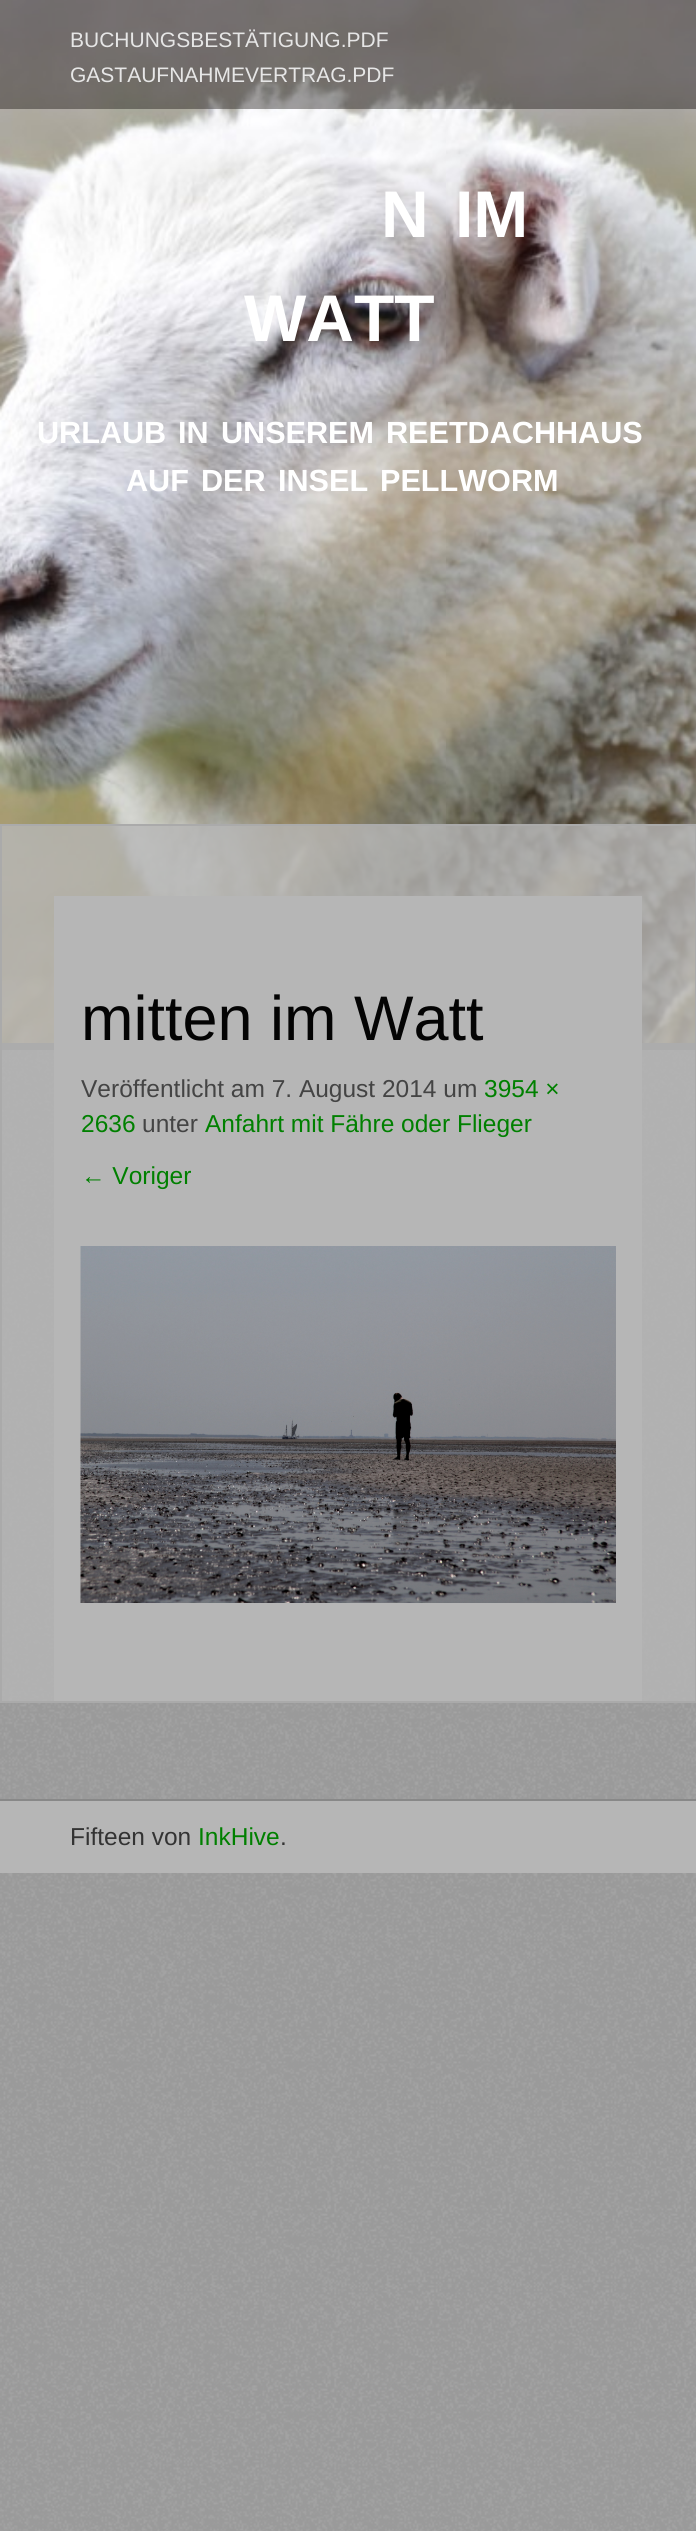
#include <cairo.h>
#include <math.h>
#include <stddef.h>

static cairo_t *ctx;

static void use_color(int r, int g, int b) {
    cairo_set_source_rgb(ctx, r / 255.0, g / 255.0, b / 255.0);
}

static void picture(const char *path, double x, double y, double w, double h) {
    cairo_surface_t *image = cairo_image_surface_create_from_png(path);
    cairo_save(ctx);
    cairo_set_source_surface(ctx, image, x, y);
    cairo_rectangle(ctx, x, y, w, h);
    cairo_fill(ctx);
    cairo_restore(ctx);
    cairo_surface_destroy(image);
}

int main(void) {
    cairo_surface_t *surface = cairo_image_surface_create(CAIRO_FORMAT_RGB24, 696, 2531);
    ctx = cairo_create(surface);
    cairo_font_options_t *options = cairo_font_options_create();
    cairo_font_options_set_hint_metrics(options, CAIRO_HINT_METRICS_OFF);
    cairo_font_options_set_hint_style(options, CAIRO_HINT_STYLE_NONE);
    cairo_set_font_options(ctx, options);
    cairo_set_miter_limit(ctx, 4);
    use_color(255, 255, 255);
    cairo_paint(ctx);
    picture("img1.png", 0, 1050, 696, 1481);
    picture("img2.png", 0, 0, 696, 1043);
    use_color(128, 128, 128);
    cairo_rectangle(ctx, 0, 1043, 696, 7);
    cairo_fill(ctx);
    cairo_set_source_rgba(ctx, 0.071, 0.051, 0.047, 0.4);
    cairo_rectangle(ctx, 0, 0, 696, 109);
    cairo_fill(ctx);
    cairo_select_font_face(ctx, "Liberation Sans", CAIRO_FONT_SLANT_NORMAL, CAIRO_FONT_WEIGHT_NORMAL);
    cairo_set_font_size(ctx, 21);
    use_color(230, 230, 230);
    cairo_move_to(ctx, 70, 47);
    cairo_show_text(ctx, "BUCHUNGSBESTÄTIGUNG.PDF");
    cairo_move_to(ctx, 70, 82);
    cairo_show_text(ctx, "GASTAUFNAHMEVERTRAG.PDF");
    cairo_select_font_face(ctx, "Liberation Sans", CAIRO_FONT_SLANT_NORMAL, CAIRO_FONT_WEIGHT_BOLD);
    cairo_set_font_size(ctx, 66);
    use_color(255, 255, 255);
    cairo_move_to(ctx, 381, 237);
    cairo_show_text(ctx, "N");
    cairo_move_to(ctx, 455, 237);
    cairo_show_text(ctx, "IM");
    cairo_move_to(ctx, 244, 341);
    cairo_show_text(ctx, "WATT");
    cairo_set_font_size(ctx, 30.6);
    cairo_move_to(ctx, 37, 443);
    cairo_show_text(ctx, "URLAUB");
    cairo_move_to(ctx, 178, 443);
    cairo_show_text(ctx, "IN");
    cairo_move_to(ctx, 221, 443);
    cairo_show_text(ctx, "UNSEREM");
    cairo_move_to(ctx, 386, 443);
    cairo_show_text(ctx, "REETDACHHAUS");
    cairo_move_to(ctx, 126, 491);
    cairo_show_text(ctx, "AUF");
    cairo_move_to(ctx, 201, 491);
    cairo_show_text(ctx, "DER");
    cairo_move_to(ctx, 278, 491);
    cairo_show_text(ctx, "INSEL");
    cairo_move_to(ctx, 380, 491);
    cairo_show_text(ctx, "PELLWORM");
    cairo_set_source_rgba(ctx, 0.714, 0.714, 0.714, 0.8);
    cairo_rectangle(ctx, 1, 825, 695, 877);
    cairo_fill_preserve(ctx);
    use_color(170, 170, 170);
    cairo_stroke(ctx);
    use_color(182, 182, 182);
    cairo_rectangle(ctx, 54, 896, 588, 805);
    cairo_fill(ctx);
    cairo_select_font_face(ctx, "Liberation Sans", CAIRO_FONT_SLANT_NORMAL, CAIRO_FONT_WEIGHT_NORMAL);
    cairo_set_font_size(ctx, 63);
    use_color(4, 4, 4);
    cairo_move_to(ctx, 81, 1040);
    cairo_show_text(ctx, "mitten im Watt");
    cairo_set_font_size(ctx, 24.5);
    use_color(68, 68, 68);
    cairo_move_to(ctx, 81, 1097);
    cairo_show_text(ctx, "Veröffentlicht am 7. August 2014 um");
    use_color(0, 128, 0);
    cairo_move_to(ctx, 484, 1097);
    cairo_show_text(ctx, "3954 ×");
    cairo_move_to(ctx, 81, 1132);
    cairo_show_text(ctx, "2636");
    use_color(68, 68, 68);
    cairo_move_to(ctx, 142, 1132);
    cairo_show_text(ctx, "unter");
    use_color(0, 128, 0);
    cairo_move_to(ctx, 205, 1132);
    cairo_show_text(ctx, "Anfahrt mit Fähre oder Flieger");
    cairo_move_to(ctx, 81, 1184);
    cairo_show_text(ctx, "← Voriger");
    picture("img3.png", 80, 1246, 536, 357);
    use_color(182, 182, 182);
    cairo_rectangle(ctx, 0, 1801, 696, 72);
    cairo_fill(ctx);
    use_color(136, 136, 136);
    cairo_rectangle(ctx, 0, 1799, 696, 2);
    cairo_fill(ctx);
    use_color(51, 51, 51);
    cairo_move_to(ctx, 70, 1845);
    cairo_show_text(ctx, "Fifteen von");
    use_color(0, 128, 0);
    cairo_move_to(ctx, 198, 1845);
    cairo_show_text(ctx, "InkHive");
    use_color(51, 51, 51);
    cairo_move_to(ctx, 280, 1845);
    cairo_show_text(ctx, ".");
    cairo_surface_write_to_png(surface, "result.png");
    cairo_font_options_destroy(options);
    cairo_destroy(ctx);
    cairo_surface_destroy(surface);
    return 0;
}
